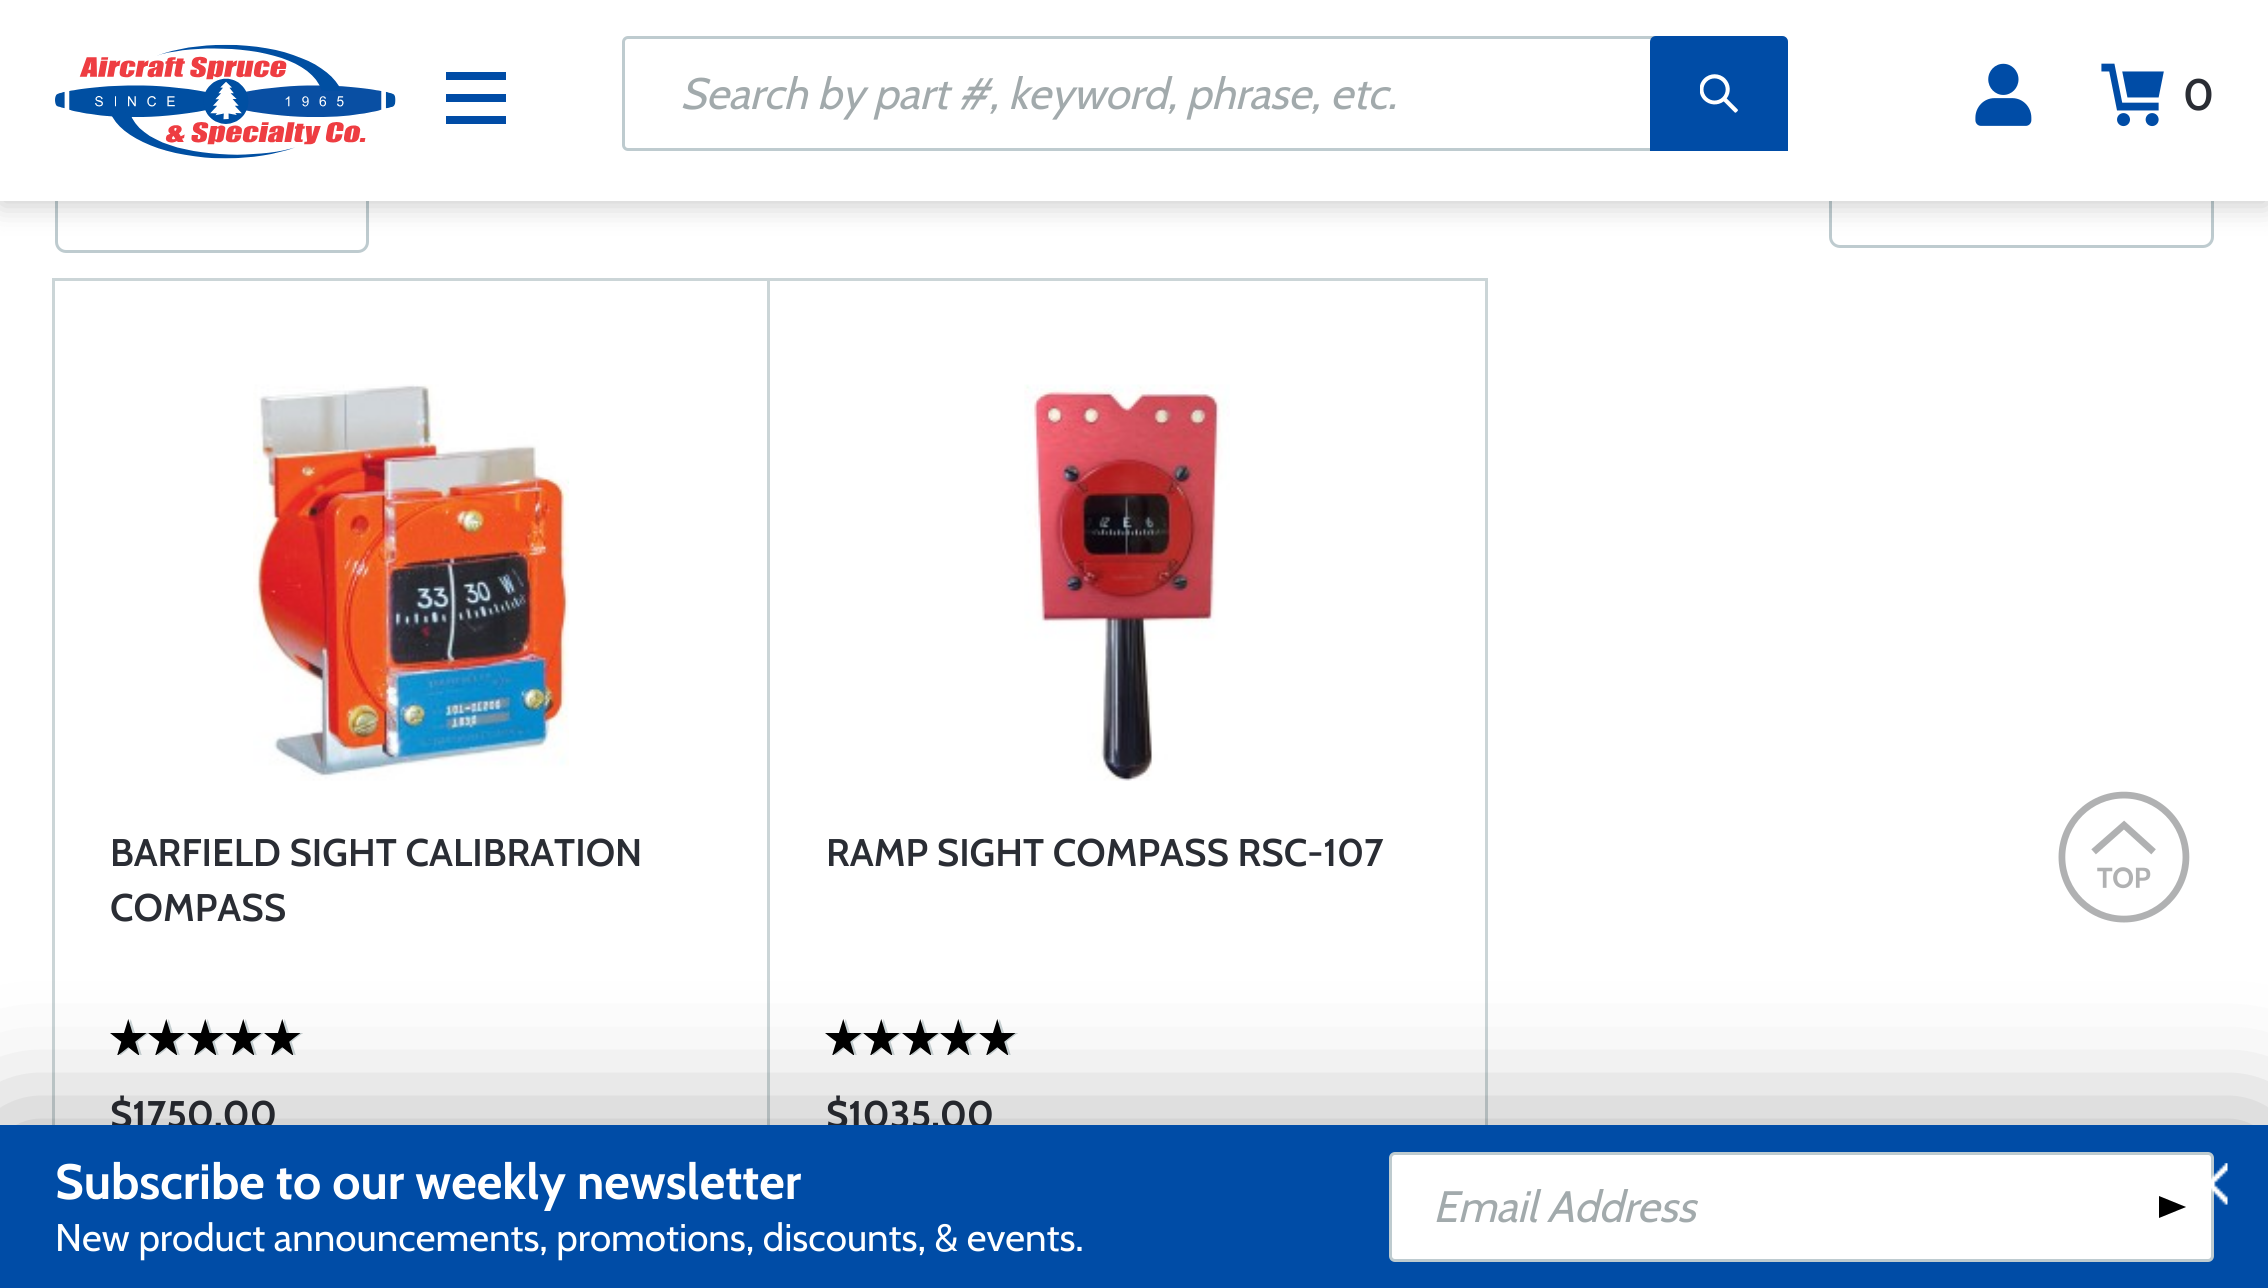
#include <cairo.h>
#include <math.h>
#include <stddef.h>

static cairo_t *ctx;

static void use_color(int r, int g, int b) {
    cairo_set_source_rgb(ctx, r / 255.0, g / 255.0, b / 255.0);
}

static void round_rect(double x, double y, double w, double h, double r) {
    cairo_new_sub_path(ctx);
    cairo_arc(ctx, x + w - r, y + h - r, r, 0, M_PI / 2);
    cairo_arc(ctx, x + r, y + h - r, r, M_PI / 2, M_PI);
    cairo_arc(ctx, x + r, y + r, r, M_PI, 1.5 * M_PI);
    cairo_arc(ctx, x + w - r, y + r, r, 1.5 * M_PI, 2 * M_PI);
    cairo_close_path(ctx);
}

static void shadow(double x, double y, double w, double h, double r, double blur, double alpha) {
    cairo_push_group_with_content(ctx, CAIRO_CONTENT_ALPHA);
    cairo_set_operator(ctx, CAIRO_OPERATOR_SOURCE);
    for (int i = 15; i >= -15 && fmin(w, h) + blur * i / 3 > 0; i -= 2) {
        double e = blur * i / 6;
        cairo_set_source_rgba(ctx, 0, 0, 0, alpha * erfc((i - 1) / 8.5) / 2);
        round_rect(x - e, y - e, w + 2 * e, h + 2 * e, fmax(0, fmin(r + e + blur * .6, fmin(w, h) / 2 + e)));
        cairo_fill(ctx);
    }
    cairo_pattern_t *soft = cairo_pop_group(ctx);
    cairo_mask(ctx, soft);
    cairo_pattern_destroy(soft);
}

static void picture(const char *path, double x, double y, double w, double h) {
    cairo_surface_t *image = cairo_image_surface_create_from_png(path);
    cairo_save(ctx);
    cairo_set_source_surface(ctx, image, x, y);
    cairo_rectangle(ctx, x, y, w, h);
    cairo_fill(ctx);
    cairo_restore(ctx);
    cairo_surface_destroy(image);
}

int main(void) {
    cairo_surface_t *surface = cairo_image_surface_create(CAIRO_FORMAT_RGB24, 2268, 1288);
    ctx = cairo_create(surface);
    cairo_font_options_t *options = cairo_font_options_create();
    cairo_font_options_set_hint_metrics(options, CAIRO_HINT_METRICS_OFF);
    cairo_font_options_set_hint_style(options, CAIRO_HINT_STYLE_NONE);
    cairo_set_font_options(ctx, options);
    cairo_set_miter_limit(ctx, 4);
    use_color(255, 255, 255);
    cairo_paint(ctx);
    round_rect(56.5, 139.5, 311, 112, 9.5);
    use_color(190, 203, 207);
    cairo_set_line_width(ctx, 3);
    cairo_stroke(ctx);
    round_rect(1830.5, 139.5, 382, 107, 9.5);
    cairo_stroke(ctx);
    use_color(0, 0, 0);
    shadow(0, 6, 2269, 200, 0, 14, 0.2);
    use_color(255, 255, 255);
    cairo_rectangle(ctx, 0, 0, 2268, 201);
    cairo_fill(ctx);
    picture("img1.png", 55, 44, 341, 115);
    use_color(0, 76, 166);
    cairo_rectangle(ctx, 446, 72, 60, 8);
    cairo_fill(ctx);
    cairo_rectangle(ctx, 446, 94, 60, 8);
    cairo_fill(ctx);
    cairo_rectangle(ctx, 446, 116, 60, 8);
    cairo_fill(ctx);
    round_rect(623.5, 37.5, 1163, 112, 4.5);
    use_color(190, 203, 207);
    cairo_stroke(ctx);
    cairo_select_font_face(ctx, "Cabin", CAIRO_FONT_SLANT_ITALIC, CAIRO_FONT_WEIGHT_NORMAL);
    cairo_set_font_size(ctx, 44);
    use_color(162, 170, 172);
    cairo_move_to(ctx, 680, 109);
    cairo_show_text(ctx, "Search by part #, keyword, phrase, etc.");
    use_color(0, 76, 166);
    cairo_new_path(ctx);
    cairo_move_to(ctx, 1656, 36);
    cairo_line_to(ctx, 1782, 36);
    cairo_curve_to(ctx, 1785.5, 36, 1788, 38.5, 1788, 42);
    cairo_line_to(ctx, 1788, 151);
    cairo_line_to(ctx, 1650, 151);
    cairo_line_to(ctx, 1650, 42);
    cairo_curve_to(ctx, 1650, 38.5, 1652.5, 36, 1656, 36);
    cairo_close_path(ctx);
    cairo_fill(ctx);
    picture("img2.png", 1700, 74, 38, 39);
    picture("img3.png", 1975, 63, 57, 63);
    picture("img4.png", 2101, 63, 63, 64);
    cairo_select_font_face(ctx, "Cabin SemiBold", CAIRO_FONT_SLANT_NORMAL, CAIRO_FONT_WEIGHT_NORMAL);
    use_color(42, 45, 52);
    cairo_move_to(ctx, 2183, 110);
    cairo_show_text(ctx, "0");
    cairo_rectangle(ctx, 53.5, 279.5, 715, 937);
    use_color(203, 213, 215);
    cairo_stroke(ctx);
    picture("img5.png", 253, 384, 317, 397);
    cairo_set_font_size(ctx, 38.5);
    use_color(42, 45, 52);
    cairo_move_to(ctx, 110, 866);
    cairo_show_text(ctx, "BARFIELD SIGHT CALIBRATION");
    cairo_move_to(ctx, 110, 921);
    cairo_show_text(ctx, "COMPASS");
    picture("img6.png", 119, 1019, 183, 36);
    picture("img7.png", 110, 1019, 193, 36);
    cairo_select_font_face(ctx, "Cabin", CAIRO_FONT_SLANT_NORMAL, CAIRO_FONT_WEIGHT_BOLD);
    cairo_move_to(ctx, 110, 1128);
    cairo_show_text(ctx, "$1750.00");
    cairo_rectangle(ctx, 768.5, 279.5, 718, 937);
    use_color(203, 213, 215);
    cairo_stroke(ctx);
    picture("img8.png", 1024, 384, 206, 397);
    cairo_select_font_face(ctx, "Cabin SemiBold", CAIRO_FONT_SLANT_NORMAL, CAIRO_FONT_WEIGHT_NORMAL);
    use_color(42, 45, 52);
    cairo_move_to(ctx, 826, 866);
    cairo_show_text(ctx, "RAMP SIGHT COMPASS RSC-107");
    picture("img6.png", 834, 1019, 183, 36);
    picture("img7.png", 825, 1019, 193, 36);
    cairo_select_font_face(ctx, "Cabin", CAIRO_FONT_SLANT_NORMAL, CAIRO_FONT_WEIGHT_BOLD);
    cairo_move_to(ctx, 826, 1128);
    cairo_show_text(ctx, "$1035.00");
    picture("img9.png", 2058, 791, 132, 132);
    use_color(0, 0, 0);
    shadow(0, 1130, 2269, 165, 0, 69, 0.34);
    use_color(0, 76, 166);
    cairo_rectangle(ctx, 0, 1125, 2268, 163);
    cairo_fill(ctx);
    cairo_set_font_size(ctx, 49.5);
    use_color(255, 255, 255);
    cairo_move_to(ctx, 55, 1199);
    cairo_show_text(ctx, "Subscribe to our weekly newsletter");
    cairo_select_font_face(ctx, "Cabin", CAIRO_FONT_SLANT_NORMAL, CAIRO_FONT_WEIGHT_NORMAL);
    cairo_set_font_size(ctx, 38.5);
    cairo_move_to(ctx, 55, 1251);
    cairo_show_text(ctx, "New product announcements, promotions, discounts, & events.");
    round_rect(1390.5, 1153.5, 822, 107, 4.5);
    cairo_fill_preserve(ctx);
    use_color(190, 203, 207);
    cairo_stroke(ctx);
    cairo_select_font_face(ctx, "Cabin", CAIRO_FONT_SLANT_ITALIC, CAIRO_FONT_WEIGHT_NORMAL);
    cairo_set_font_size(ctx, 44);
    use_color(162, 170, 172);
    cairo_move_to(ctx, 1433, 1222);
    cairo_show_text(ctx, "Email Address");
    use_color(0, 0, 0);
    cairo_new_path(ctx);
    cairo_move_to(ctx, 2159, 1218);
    cairo_line_to(ctx, 2159, 1196);
    cairo_line_to(ctx, 2186, 1207);
    cairo_close_path(ctx);
    cairo_fill(ctx);
    picture("img10.png", 2211, 1163, 17, 42);
    cairo_surface_write_to_png(surface, "result.png");
    cairo_font_options_destroy(options);
    cairo_destroy(ctx);
    cairo_surface_destroy(surface);
    return 0;
}
